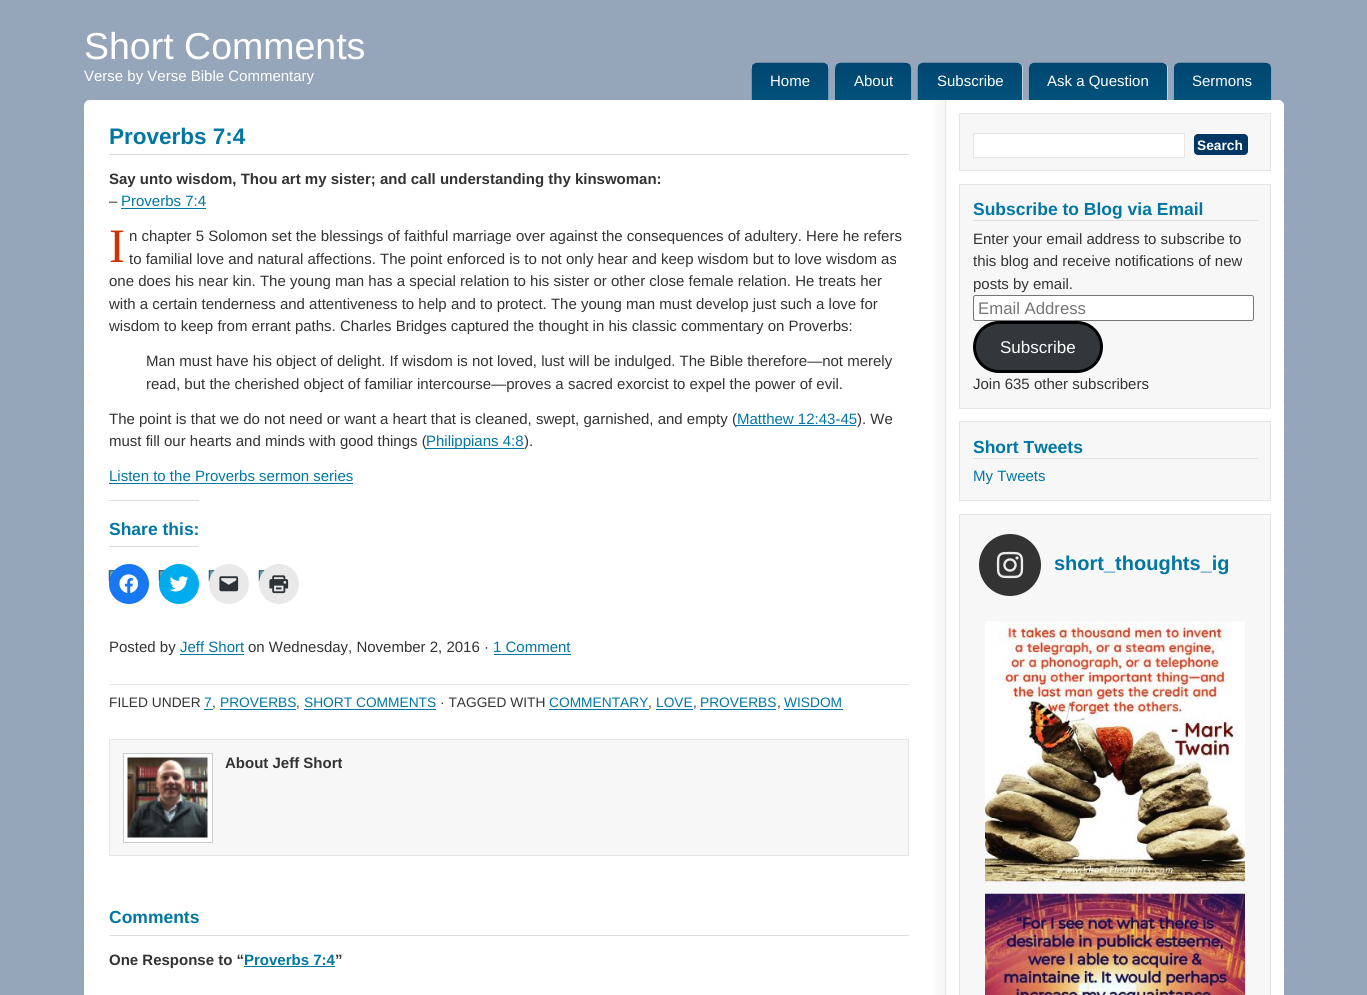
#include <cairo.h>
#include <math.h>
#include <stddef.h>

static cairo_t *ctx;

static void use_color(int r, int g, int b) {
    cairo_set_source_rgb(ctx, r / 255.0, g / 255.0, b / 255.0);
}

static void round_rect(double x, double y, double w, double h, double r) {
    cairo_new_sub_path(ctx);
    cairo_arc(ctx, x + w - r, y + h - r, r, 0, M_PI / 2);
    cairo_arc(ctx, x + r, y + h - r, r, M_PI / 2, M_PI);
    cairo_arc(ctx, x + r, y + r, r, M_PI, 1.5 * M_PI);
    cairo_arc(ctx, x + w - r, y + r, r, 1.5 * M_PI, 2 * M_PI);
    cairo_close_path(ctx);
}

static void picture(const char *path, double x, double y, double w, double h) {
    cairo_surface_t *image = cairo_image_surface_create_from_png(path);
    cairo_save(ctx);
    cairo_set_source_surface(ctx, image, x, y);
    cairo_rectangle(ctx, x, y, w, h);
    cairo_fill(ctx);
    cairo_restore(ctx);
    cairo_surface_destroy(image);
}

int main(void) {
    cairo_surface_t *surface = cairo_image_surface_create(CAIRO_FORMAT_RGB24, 1367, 995);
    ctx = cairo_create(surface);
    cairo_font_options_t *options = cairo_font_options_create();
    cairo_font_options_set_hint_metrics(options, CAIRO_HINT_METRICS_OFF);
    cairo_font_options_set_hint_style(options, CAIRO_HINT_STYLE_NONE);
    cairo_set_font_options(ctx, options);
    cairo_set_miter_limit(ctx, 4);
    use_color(150, 166, 186);
    cairo_paint(ctx);
    cairo_select_font_face(ctx, "Liberation Sans", CAIRO_FONT_SLANT_NORMAL, CAIRO_FONT_WEIGHT_NORMAL);
    cairo_set_font_size(ctx, 37.5);
    use_color(255, 255, 255);
    cairo_move_to(ctx, 84, 59);
    cairo_show_text(ctx, "Short Comments");
    cairo_set_font_size(ctx, 15);
    cairo_move_to(ctx, 84, 81);
    cairo_show_text(ctx, "Verse by Verse Bible Commentary");
    cairo_new_path(ctx);
    cairo_move_to(ctx, 757, 63);
    cairo_line_to(ctx, 823, 63);
    cairo_curve_to(ctx, 826.5, 63, 829, 65.5, 829, 69);
    cairo_line_to(ctx, 829, 100);
    cairo_line_to(ctx, 751, 100);
    cairo_line_to(ctx, 751, 69);
    cairo_curve_to(ctx, 751, 65.5, 753.5, 63, 757, 63);
    cairo_close_path(ctx);
    cairo_fill(ctx);
    picture("img1.png", 751, 62, 78, 38);
    cairo_move_to(ctx, 770, 86);
    cairo_show_text(ctx, "Home");
    picture("img2.png", 835, 62, 77, 38);
    cairo_move_to(ctx, 854, 86);
    cairo_show_text(ctx, "About");
    cairo_new_path(ctx);
    cairo_move_to(ctx, 924, 63);
    cairo_line_to(ctx, 1017, 63);
    cairo_curve_to(ctx, 1020.5, 63, 1023, 65.5, 1023, 69);
    cairo_line_to(ctx, 1023, 100);
    cairo_line_to(ctx, 918, 100);
    cairo_line_to(ctx, 918, 69);
    cairo_curve_to(ctx, 918, 65.5, 920.5, 63, 924, 63);
    cairo_close_path(ctx);
    cairo_fill(ctx);
    picture("img3.png", 917, 62, 106, 38);
    cairo_move_to(ctx, 937, 86);
    cairo_show_text(ctx, "Subscribe");
    cairo_new_path(ctx);
    cairo_move_to(ctx, 1035, 63);
    cairo_line_to(ctx, 1162, 63);
    cairo_curve_to(ctx, 1165.5, 63, 1168, 65.5, 1168, 69);
    cairo_line_to(ctx, 1168, 100);
    cairo_line_to(ctx, 1029, 100);
    cairo_line_to(ctx, 1029, 69);
    cairo_curve_to(ctx, 1029, 65.5, 1031.5, 63, 1035, 63);
    cairo_close_path(ctx);
    cairo_fill(ctx);
    picture("img4.png", 1028, 62, 140, 38);
    cairo_move_to(ctx, 1047, 86);
    cairo_show_text(ctx, "Ask a Question");
    picture("img5.png", 1173, 62, 99, 38);
    cairo_move_to(ctx, 1192, 86);
    cairo_show_text(ctx, "Sermons");
    cairo_new_path(ctx);
    cairo_move_to(ctx, 90, 100);
    cairo_line_to(ctx, 1278, 100);
    cairo_curve_to(ctx, 1281.5, 100, 1284, 102.5, 1284, 106);
    cairo_line_to(ctx, 1284, 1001);
    cairo_line_to(ctx, 84, 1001);
    cairo_line_to(ctx, 84, 106);
    cairo_curve_to(ctx, 84, 102.5, 86.5, 100, 90, 100);
    cairo_close_path(ctx);
    cairo_fill(ctx);
    picture("img6.png", 86, 100, 1198, 895);
    use_color(221, 221, 221);
    cairo_rectangle(ctx, 109, 154, 800, 1);
    cairo_fill(ctx);
    cairo_select_font_face(ctx, "Liberation Sans", CAIRO_FONT_SLANT_NORMAL, CAIRO_FONT_WEIGHT_BOLD);
    cairo_set_font_size(ctx, 22.5);
    use_color(0, 118, 163);
    cairo_move_to(ctx, 109, 144);
    cairo_show_text(ctx, "Proverbs 7:4");
    cairo_set_font_size(ctx, 15);
    use_color(51, 51, 51);
    cairo_move_to(ctx, 109, 184);
    cairo_show_text(ctx, "Say unto wisdom, Thou art my sister; and call understanding thy kinswoman:");
    cairo_select_font_face(ctx, "Liberation Sans", CAIRO_FONT_SLANT_NORMAL, CAIRO_FONT_WEIGHT_NORMAL);
    cairo_move_to(ctx, 109, 206);
    cairo_show_text(ctx, "–");
    use_color(0, 118, 163);
    cairo_move_to(ctx, 121, 206);
    cairo_show_text(ctx, "Proverbs 7:4");
    cairo_rectangle(ctx, 121, 208, 85, 1);
    cairo_fill(ctx);
    cairo_select_font_face(ctx, "Liberation Serif", CAIRO_FONT_SLANT_NORMAL, CAIRO_FONT_WEIGHT_NORMAL);
    cairo_set_font_size(ctx, 48);
    use_color(204, 51, 0);
    cairo_move_to(ctx, 109, 262);
    cairo_show_text(ctx, "I");
    cairo_select_font_face(ctx, "Liberation Sans", CAIRO_FONT_SLANT_NORMAL, CAIRO_FONT_WEIGHT_NORMAL);
    cairo_set_font_size(ctx, 15);
    use_color(51, 51, 51);
    cairo_move_to(ctx, 129, 241);
    cairo_show_text(ctx, "n chapter 5 Solomon set the blessings of faithful marriage over against the consequences of adultery. Here he refers");
    cairo_move_to(ctx, 129, 264);
    cairo_show_text(ctx, "to familial love and natural affections. The point enforced is to not only hear and keep wisdom but to love wisdom as");
    cairo_move_to(ctx, 109, 286);
    cairo_show_text(ctx, "one does his near kin. The young man has a special relation to his sister or other close female relation. He treats her");
    cairo_move_to(ctx, 109, 309);
    cairo_show_text(ctx, "with a certain tenderness and attentiveness to help and to protect. The young man must develop just such a love for");
    cairo_move_to(ctx, 109, 331);
    cairo_show_text(ctx, "wisdom to keep from errant paths. Charles Bridges captured the thought in his classic commentary on Proverbs:");
    cairo_move_to(ctx, 146, 366);
    cairo_show_text(ctx, "Man must have his object of delight. If wisdom is not loved, lust will be indulged. The Bible therefore—not merely");
    cairo_move_to(ctx, 146, 389);
    cairo_show_text(ctx, "read, but the cherished object of familiar intercourse—proves a sacred exorcist to expel the power of evil.");
    cairo_move_to(ctx, 109, 424);
    cairo_show_text(ctx, "The point is that we do not need or want a heart that is cleaned, swept, garnished, and empty (");
    use_color(0, 118, 163);
    cairo_move_to(ctx, 737, 424);
    cairo_show_text(ctx, "Matthew 12:43-45");
    cairo_rectangle(ctx, 736, 425, 120, 1);
    cairo_fill(ctx);
    use_color(51, 51, 51);
    cairo_move_to(ctx, 857, 424);
    cairo_show_text(ctx, "). We");
    cairo_move_to(ctx, 109, 446);
    cairo_show_text(ctx, "must fill our hearts and minds with good things (");
    use_color(0, 118, 163);
    cairo_rectangle(ctx, 426, 448, 98, 1);
    cairo_fill(ctx);
    cairo_move_to(ctx, 426, 446);
    cairo_show_text(ctx, "Philippians 4:8");
    use_color(51, 51, 51);
    cairo_move_to(ctx, 524, 446);
    cairo_show_text(ctx, ").");
    use_color(0, 118, 163);
    cairo_move_to(ctx, 109, 481);
    cairo_show_text(ctx, "Listen to the Proverbs sermon series");
    cairo_rectangle(ctx, 109, 483, 244, 1);
    cairo_fill(ctx);
    use_color(221, 221, 221);
    cairo_rectangle(ctx, 109, 546, 90, 1);
    cairo_fill(ctx);
    use_color(220, 220, 222);
    cairo_rectangle(ctx, 109, 500, 90, 1);
    cairo_fill(ctx);
    cairo_select_font_face(ctx, "Liberation Sans", CAIRO_FONT_SLANT_NORMAL, CAIRO_FONT_WEIGHT_BOLD);
    cairo_set_font_size(ctx, 17.5);
    use_color(0, 118, 163);
    cairo_move_to(ctx, 109, 535);
    cairo_show_text(ctx, "Share this:");
    picture("img7.png", 108, 569, 8, 13);
    use_color(24, 119, 242);
    cairo_arc(ctx, 129, 584, 20, 0, 2 * M_PI);
    cairo_fill(ctx);
    picture("img8.png", 119, 574, 20, 19);
    picture("img7.png", 158, 569, 8, 13);
    use_color(0, 172, 238);
    cairo_arc(ctx, 179, 584, 20, 0, 2 * M_PI);
    cairo_fill(ctx);
    picture("img9.png", 169, 576, 20, 16);
    picture("img10.png", 208, 569, 8, 13);
    use_color(233, 233, 233);
    cairo_arc(ctx, 229, 584, 20, 0, 2 * M_PI);
    cairo_fill(ctx);
    picture("img11.png", 219, 576, 20, 16);
    picture("img10.png", 258, 569, 8, 13);
    cairo_arc(ctx, 279, 584, 20, 0, 2 * M_PI);
    cairo_fill(ctx);
    picture("img12.png", 269, 575, 20, 19);
    cairo_select_font_face(ctx, "Liberation Sans", CAIRO_FONT_SLANT_NORMAL, CAIRO_FONT_WEIGHT_NORMAL);
    cairo_set_font_size(ctx, 15);
    use_color(51, 51, 51);
    cairo_move_to(ctx, 109, 652);
    cairo_show_text(ctx, "Posted by");
    use_color(0, 118, 163);
    cairo_move_to(ctx, 180, 652);
    cairo_show_text(ctx, "Jeff Short");
    cairo_rectangle(ctx, 180, 654, 64, 1);
    cairo_fill(ctx);
    use_color(51, 51, 51);
    cairo_move_to(ctx, 248, 652);
    cairo_show_text(ctx, "on Wednesday, November 2, 2016 ·");
    use_color(0, 118, 163);
    cairo_move_to(ctx, 493, 652);
    cairo_show_text(ctx, "1 Comment");
    cairo_rectangle(ctx, 494, 654, 77, 1);
    cairo_fill(ctx);
    use_color(230, 230, 230);
    cairo_rectangle(ctx, 109, 684, 800, 1);
    cairo_fill(ctx);
    cairo_set_font_size(ctx, 13.75);
    use_color(51, 51, 51);
    cairo_move_to(ctx, 109, 707);
    cairo_show_text(ctx, "FILED UNDER");
    use_color(0, 118, 163);
    cairo_move_to(ctx, 204, 707);
    cairo_show_text(ctx, "7");
    cairo_rectangle(ctx, 204, 709, 9, 1);
    cairo_fill(ctx);
    use_color(51, 51, 51);
    cairo_move_to(ctx, 212, 707);
    cairo_show_text(ctx, ",");
    use_color(0, 118, 163);
    cairo_move_to(ctx, 220, 707);
    cairo_show_text(ctx, "PROVERBS");
    cairo_rectangle(ctx, 220, 709, 76, 1);
    cairo_fill(ctx);
    use_color(51, 51, 51);
    cairo_move_to(ctx, 296, 707);
    cairo_show_text(ctx, ",");
    use_color(0, 118, 163);
    cairo_move_to(ctx, 304, 707);
    cairo_show_text(ctx, "SHORT COMMENTS");
    cairo_rectangle(ctx, 304, 709, 132, 1);
    cairo_fill(ctx);
    use_color(51, 51, 51);
    cairo_move_to(ctx, 440, 707);
    cairo_show_text(ctx, "· TAGGED WITH");
    use_color(0, 118, 163);
    cairo_move_to(ctx, 549, 707);
    cairo_show_text(ctx, "COMMENTARY");
    cairo_rectangle(ctx, 549, 709, 100, 1);
    cairo_fill(ctx);
    use_color(51, 51, 51);
    cairo_move_to(ctx, 648, 707);
    cairo_show_text(ctx, ",");
    use_color(0, 118, 163);
    cairo_move_to(ctx, 656, 707);
    cairo_show_text(ctx, "LOVE");
    cairo_rectangle(ctx, 656, 709, 37, 1);
    cairo_fill(ctx);
    use_color(51, 51, 51);
    cairo_move_to(ctx, 693, 707);
    cairo_show_text(ctx, ",");
    use_color(0, 118, 163);
    cairo_move_to(ctx, 700, 707);
    cairo_show_text(ctx, "PROVERBS");
    cairo_rectangle(ctx, 700, 709, 76, 1);
    cairo_fill(ctx);
    use_color(51, 51, 51);
    cairo_move_to(ctx, 777, 707);
    cairo_show_text(ctx, ",");
    use_color(0, 118, 163);
    cairo_move_to(ctx, 784, 707);
    cairo_show_text(ctx, "WISDOM");
    cairo_rectangle(ctx, 784, 709, 59, 1);
    cairo_fill(ctx);
    use_color(247, 247, 247);
    cairo_rectangle(ctx, 109.5, 739.5, 799, 116);
    cairo_fill_preserve(ctx);
    use_color(230, 230, 230);
    cairo_set_line_width(ctx, 1);
    cairo_stroke(ctx);
    use_color(255, 255, 255);
    cairo_rectangle(ctx, 123.5, 753.5, 89, 89);
    cairo_fill_preserve(ctx);
    use_color(204, 204, 204);
    cairo_stroke(ctx);
    picture("img13.png", 127, 757, 81, 81);
    cairo_select_font_face(ctx, "Liberation Sans", CAIRO_FONT_SLANT_NORMAL, CAIRO_FONT_WEIGHT_BOLD);
    cairo_set_font_size(ctx, 15);
    use_color(51, 51, 51);
    cairo_move_to(ctx, 225, 768);
    cairo_show_text(ctx, "About Jeff Short");
    use_color(221, 221, 221);
    cairo_rectangle(ctx, 109, 935, 800, 1);
    cairo_fill(ctx);
    cairo_set_font_size(ctx, 17.5);
    use_color(0, 118, 163);
    cairo_move_to(ctx, 109, 923);
    cairo_show_text(ctx, "Comments");
    cairo_set_font_size(ctx, 15);
    use_color(51, 51, 51);
    cairo_move_to(ctx, 109, 965);
    cairo_show_text(ctx, "One Response to “");
    use_color(0, 118, 163);
    cairo_rectangle(ctx, 244, 966, 91, 1);
    cairo_fill(ctx);
    cairo_move_to(ctx, 244, 965);
    cairo_show_text(ctx, "Proverbs 7:4");
    use_color(51, 51, 51);
    cairo_move_to(ctx, 335, 965);
    cairo_show_text(ctx, "”");
    use_color(247, 247, 247);
    cairo_rectangle(ctx, 959.5, 113.5, 311, 57);
    cairo_fill_preserve(ctx);
    use_color(230, 230, 230);
    cairo_stroke(ctx);
    use_color(255, 255, 255);
    cairo_rectangle(ctx, 973.5, 133.5, 211, 24);
    cairo_fill_preserve(ctx);
    use_color(230, 230, 230);
    cairo_stroke(ctx);
    use_color(0, 54, 99);
    round_rect(1194.5, 134.5, 53, 20, 3.5);
    cairo_fill_preserve(ctx);
    cairo_stroke(ctx);
    cairo_set_font_size(ctx, 13.75);
    use_color(255, 255, 255);
    cairo_move_to(ctx, 1197, 150);
    cairo_show_text(ctx, "Search");
    use_color(247, 247, 247);
    cairo_rectangle(ctx, 959.5, 184.5, 311, 224);
    cairo_fill_preserve(ctx);
    use_color(230, 230, 230);
    cairo_stroke(ctx);
    use_color(221, 221, 221);
    cairo_rectangle(ctx, 973, 220, 285, 1);
    cairo_fill(ctx);
    cairo_set_font_size(ctx, 17.5);
    use_color(0, 118, 163);
    cairo_move_to(ctx, 973, 215);
    cairo_show_text(ctx, "Subscribe to Blog via Email");
    cairo_select_font_face(ctx, "Liberation Sans", CAIRO_FONT_SLANT_NORMAL, CAIRO_FONT_WEIGHT_NORMAL);
    cairo_set_font_size(ctx, 15);
    use_color(51, 51, 51);
    cairo_move_to(ctx, 973, 244);
    cairo_show_text(ctx, "Enter your email address to subscribe to");
    cairo_move_to(ctx, 973, 266);
    cairo_show_text(ctx, "this blog and receive notifications of new");
    cairo_move_to(ctx, 973, 289);
    cairo_show_text(ctx, "posts by email.");
    use_color(255, 255, 255);
    round_rect(973.5, 295.5, 280, 25, 2);
    cairo_fill_preserve(ctx);
    use_color(118, 118, 118);
    cairo_stroke(ctx);
    cairo_set_font_size(ctx, 16.75);
    use_color(117, 117, 117);
    cairo_move_to(ctx, 978, 314);
    cairo_show_text(ctx, "Email Address");
    use_color(50, 55, 60);
    round_rect(974.5, 322.5, 127, 49, 24.5);
    cairo_fill_preserve(ctx);
    use_color(0, 0, 0);
    cairo_set_line_width(ctx, 3);
    cairo_stroke(ctx);
    cairo_set_font_size(ctx, 17);
    use_color(255, 255, 255);
    cairo_move_to(ctx, 1000, 353);
    cairo_show_text(ctx, "Subscribe");
    cairo_set_font_size(ctx, 15);
    use_color(51, 51, 51);
    cairo_move_to(ctx, 973, 389);
    cairo_show_text(ctx, "Join 635 other subscribers");
    use_color(247, 247, 247);
    cairo_rectangle(ctx, 959.5, 421.5, 311, 79);
    cairo_fill_preserve(ctx);
    use_color(230, 230, 230);
    cairo_set_line_width(ctx, 1);
    cairo_stroke(ctx);
    use_color(221, 221, 221);
    cairo_rectangle(ctx, 973, 458, 285, 1);
    cairo_fill(ctx);
    cairo_select_font_face(ctx, "Liberation Sans", CAIRO_FONT_SLANT_NORMAL, CAIRO_FONT_WEIGHT_BOLD);
    cairo_set_font_size(ctx, 17.5);
    use_color(0, 118, 163);
    cairo_move_to(ctx, 973, 453);
    cairo_show_text(ctx, "Short Tweets");
    cairo_select_font_face(ctx, "Liberation Sans", CAIRO_FONT_SLANT_NORMAL, CAIRO_FONT_WEIGHT_NORMAL);
    cairo_set_font_size(ctx, 15);
    cairo_move_to(ctx, 973, 481);
    cairo_show_text(ctx, "My Tweets");
    use_color(247, 247, 247);
    cairo_rectangle(ctx, 959.5, 514.5, 311, 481);
    cairo_fill_preserve(ctx);
    use_color(230, 230, 230);
    cairo_stroke(ctx);
    use_color(51, 51, 51);
    cairo_arc(ctx, 1010, 565, 31, 0, 2 * M_PI);
    cairo_fill(ctx);
    picture("img14.png", 996, 551, 28, 28);
    cairo_select_font_face(ctx, "Liberation Sans", CAIRO_FONT_SLANT_NORMAL, CAIRO_FONT_WEIGHT_BOLD);
    cairo_set_font_size(ctx, 20);
    use_color(0, 118, 163);
    cairo_move_to(ctx, 1054, 570);
    cairo_show_text(ctx, "short_thoughts_ig");
    picture("img15.png", 985, 621, 260, 261);
    picture("img16.png", 985, 893, 260, 102);
    cairo_surface_write_to_png(surface, "result.png");
    cairo_font_options_destroy(options);
    cairo_destroy(ctx);
    cairo_surface_destroy(surface);
    return 0;
}
